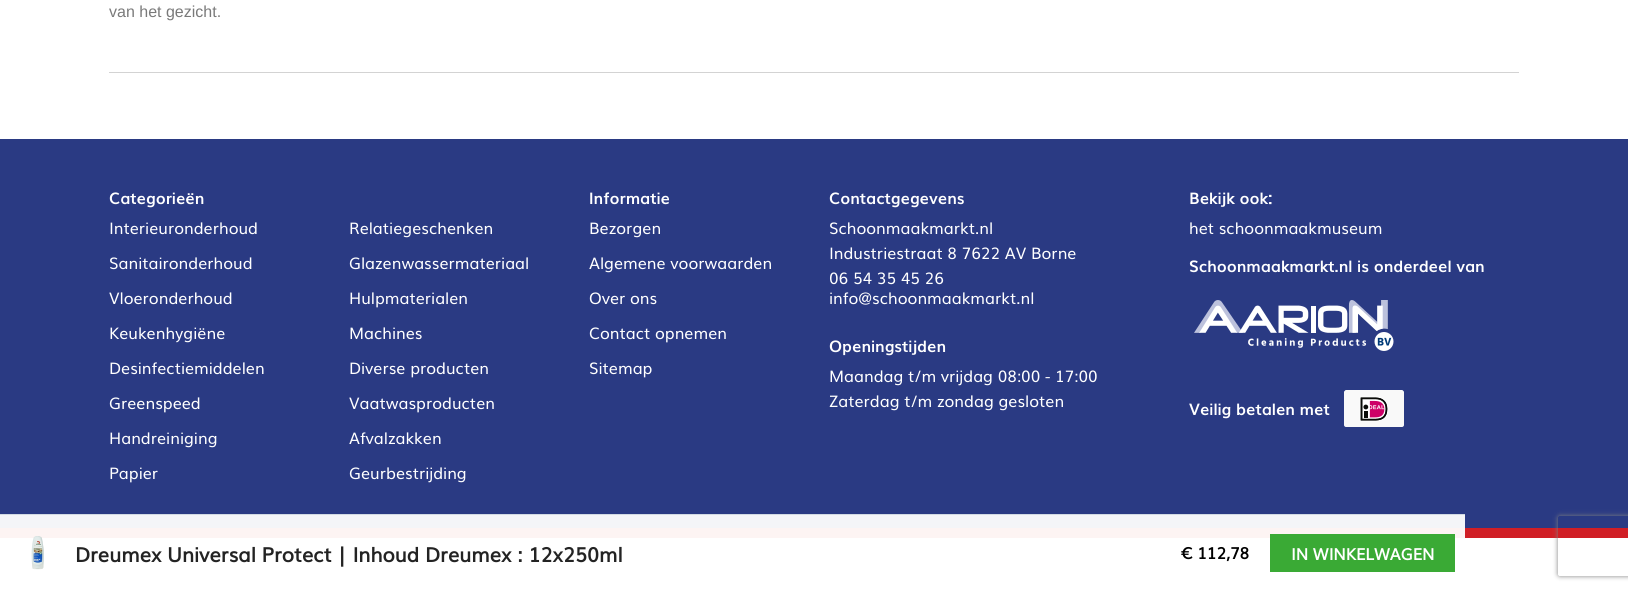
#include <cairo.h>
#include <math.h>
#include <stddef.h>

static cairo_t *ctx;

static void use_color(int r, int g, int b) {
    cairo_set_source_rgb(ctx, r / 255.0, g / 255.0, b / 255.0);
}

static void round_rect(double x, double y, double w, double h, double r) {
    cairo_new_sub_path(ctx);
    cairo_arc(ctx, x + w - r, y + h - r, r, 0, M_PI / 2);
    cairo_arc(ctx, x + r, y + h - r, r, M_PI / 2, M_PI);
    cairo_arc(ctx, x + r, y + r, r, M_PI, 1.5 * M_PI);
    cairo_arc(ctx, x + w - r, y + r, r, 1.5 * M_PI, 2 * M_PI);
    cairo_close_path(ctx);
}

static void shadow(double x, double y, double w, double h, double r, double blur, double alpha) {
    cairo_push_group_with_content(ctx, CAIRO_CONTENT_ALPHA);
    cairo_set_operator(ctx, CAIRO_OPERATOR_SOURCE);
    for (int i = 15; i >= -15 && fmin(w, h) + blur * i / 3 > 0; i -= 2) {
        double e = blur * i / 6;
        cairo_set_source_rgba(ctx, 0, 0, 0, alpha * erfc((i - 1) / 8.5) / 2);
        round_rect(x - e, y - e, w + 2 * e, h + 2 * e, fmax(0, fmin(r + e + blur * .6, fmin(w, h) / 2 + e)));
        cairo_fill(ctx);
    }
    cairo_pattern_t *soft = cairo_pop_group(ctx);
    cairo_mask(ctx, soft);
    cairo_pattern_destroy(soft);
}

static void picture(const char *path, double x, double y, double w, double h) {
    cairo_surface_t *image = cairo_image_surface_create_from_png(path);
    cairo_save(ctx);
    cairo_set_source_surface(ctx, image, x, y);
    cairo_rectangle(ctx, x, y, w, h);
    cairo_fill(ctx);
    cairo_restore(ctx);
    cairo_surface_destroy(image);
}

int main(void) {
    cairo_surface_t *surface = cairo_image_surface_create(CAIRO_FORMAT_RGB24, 1628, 590);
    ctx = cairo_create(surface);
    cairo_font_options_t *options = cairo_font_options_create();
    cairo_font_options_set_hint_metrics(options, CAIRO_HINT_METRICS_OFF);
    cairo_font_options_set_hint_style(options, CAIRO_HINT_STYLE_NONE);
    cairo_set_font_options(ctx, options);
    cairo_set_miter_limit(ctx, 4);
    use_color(255, 255, 255);
    cairo_paint(ctx);
    cairo_select_font_face(ctx, "Liberation Sans", CAIRO_FONT_SLANT_NORMAL, CAIRO_FONT_WEIGHT_NORMAL);
    cairo_set_font_size(ctx, 16);
    use_color(122, 122, 122);
    cairo_move_to(ctx, 109, 17);
    cairo_show_text(ctx, "van het gezicht.");
    use_color(211, 211, 211);
    cairo_rectangle(ctx, 109, 72, 1410, 1);
    cairo_fill(ctx);
    use_color(42, 58, 131);
    cairo_rectangle(ctx, 0, 139, 1628, 389);
    cairo_fill(ctx);
    use_color(210, 218, 227);
    cairo_rectangle(ctx, 0, 514, 1465, 1);
    cairo_fill(ctx);
    use_color(253, 244, 243);
    cairo_rectangle(ctx, 0, 528, 1465, 10);
    cairo_fill(ctx);
    picture("img1.png", 31, 536, 13, 34);
    cairo_select_font_face(ctx, "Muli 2", CAIRO_FONT_SLANT_NORMAL, CAIRO_FONT_WEIGHT_BOLD);
    cairo_set_font_size(ctx, 20);
    use_color(35, 35, 35);
    cairo_move_to(ctx, 75, 562);
    cairo_show_text(ctx, "Dreumex Universal Protect | Inhoud Dreumex : 12x250ml");
    cairo_set_font_size(ctx, 16);
    use_color(0, 0, 0);
    cairo_move_to(ctx, 1181, 559);
    cairo_show_text(ctx, "€ 112,78");
    use_color(58, 170, 53);
    cairo_rectangle(ctx, 1270, 534, 185, 38);
    cairo_fill(ctx);
    use_color(255, 255, 255);
    cairo_move_to(ctx, 1291, 560);
    cairo_show_text(ctx, "IN WINKELWAGEN");
    use_color(244, 245, 248);
    cairo_rectangle(ctx, 0, 515, 1465, 13);
    cairo_fill(ctx);
    use_color(208, 30, 37);
    cairo_rectangle(ctx, 1465, 528, 163, 10);
    cairo_fill(ctx);
    cairo_select_font_face(ctx, "Muli", CAIRO_FONT_SLANT_NORMAL, CAIRO_FONT_WEIGHT_BOLD);
    use_color(255, 255, 255);
    cairo_move_to(ctx, 109, 204);
    cairo_show_text(ctx, "Categorieën");
    cairo_select_font_face(ctx, "Muli", CAIRO_FONT_SLANT_NORMAL, CAIRO_FONT_WEIGHT_NORMAL);
    cairo_move_to(ctx, 109, 234);
    cairo_show_text(ctx, "Interieuronderhoud");
    cairo_move_to(ctx, 109, 269);
    cairo_show_text(ctx, "Sanitaironderhoud");
    cairo_move_to(ctx, 109, 304);
    cairo_show_text(ctx, "Vloeronderhoud");
    cairo_move_to(ctx, 109, 339);
    cairo_show_text(ctx, "Keukenhygiëne");
    cairo_move_to(ctx, 109, 374);
    cairo_show_text(ctx, "Desinfectiemiddelen");
    cairo_move_to(ctx, 109, 409);
    cairo_show_text(ctx, "Greenspeed");
    cairo_move_to(ctx, 109, 444);
    cairo_show_text(ctx, "Handreiniging");
    cairo_move_to(ctx, 109, 479);
    cairo_show_text(ctx, "Papier");
    cairo_move_to(ctx, 349, 234);
    cairo_show_text(ctx, "Relatiegeschenken");
    cairo_move_to(ctx, 349, 269);
    cairo_show_text(ctx, "Glazenwassermateriaal");
    cairo_move_to(ctx, 349, 304);
    cairo_show_text(ctx, "Hulpmaterialen");
    cairo_move_to(ctx, 349, 339);
    cairo_show_text(ctx, "Machines");
    cairo_move_to(ctx, 349, 374);
    cairo_show_text(ctx, "Diverse producten");
    cairo_move_to(ctx, 349, 409);
    cairo_show_text(ctx, "Vaatwasproducten");
    cairo_move_to(ctx, 349, 444);
    cairo_show_text(ctx, "Afvalzakken");
    cairo_move_to(ctx, 349, 479);
    cairo_show_text(ctx, "Geurbestrijding");
    cairo_select_font_face(ctx, "Muli", CAIRO_FONT_SLANT_NORMAL, CAIRO_FONT_WEIGHT_BOLD);
    cairo_move_to(ctx, 589, 204);
    cairo_show_text(ctx, "Informatie");
    cairo_select_font_face(ctx, "Muli", CAIRO_FONT_SLANT_NORMAL, CAIRO_FONT_WEIGHT_NORMAL);
    cairo_move_to(ctx, 589, 234);
    cairo_show_text(ctx, "Bezorgen");
    cairo_move_to(ctx, 589, 269);
    cairo_show_text(ctx, "Algemene voorwaarden");
    cairo_move_to(ctx, 589, 304);
    cairo_show_text(ctx, "Over ons");
    cairo_move_to(ctx, 589, 339);
    cairo_show_text(ctx, "Contact opnemen");
    cairo_move_to(ctx, 589, 374);
    cairo_show_text(ctx, "Sitemap");
    cairo_select_font_face(ctx, "Muli", CAIRO_FONT_SLANT_NORMAL, CAIRO_FONT_WEIGHT_BOLD);
    cairo_move_to(ctx, 829, 204);
    cairo_show_text(ctx, "Contactgegevens");
    cairo_select_font_face(ctx, "Muli", CAIRO_FONT_SLANT_NORMAL, CAIRO_FONT_WEIGHT_NORMAL);
    cairo_move_to(ctx, 829, 234);
    cairo_show_text(ctx, "Schoonmaakmarkt.nl");
    cairo_move_to(ctx, 829, 259);
    cairo_show_text(ctx, "Industriestraat 8 7622 AV Borne");
    cairo_move_to(ctx, 829, 284);
    cairo_show_text(ctx, "06 54 35 45 26");
    cairo_move_to(ctx, 829, 304);
    cairo_show_text(ctx, "info@schoonmaakmarkt.nl");
    cairo_select_font_face(ctx, "Muli", CAIRO_FONT_SLANT_NORMAL, CAIRO_FONT_WEIGHT_BOLD);
    cairo_move_to(ctx, 829, 352);
    cairo_show_text(ctx, "Openingstijden");
    cairo_select_font_face(ctx, "Muli", CAIRO_FONT_SLANT_NORMAL, CAIRO_FONT_WEIGHT_NORMAL);
    cairo_move_to(ctx, 829, 382);
    cairo_show_text(ctx, "Maandag t/m vrijdag 08:00 - 17:00");
    cairo_move_to(ctx, 829, 407);
    cairo_show_text(ctx, "Zaterdag t/m zondag gesloten");
    cairo_select_font_face(ctx, "Muli", CAIRO_FONT_SLANT_NORMAL, CAIRO_FONT_WEIGHT_BOLD);
    cairo_move_to(ctx, 1189, 204);
    cairo_show_text(ctx, "Bekijk ook:");
    cairo_select_font_face(ctx, "Muli", CAIRO_FONT_SLANT_NORMAL, CAIRO_FONT_WEIGHT_NORMAL);
    cairo_move_to(ctx, 1189, 234);
    cairo_show_text(ctx, "het schoonmaakmuseum");
    cairo_select_font_face(ctx, "Muli", CAIRO_FONT_SLANT_NORMAL, CAIRO_FONT_WEIGHT_BOLD);
    cairo_move_to(ctx, 1189, 272);
    cairo_show_text(ctx, "Schoonmaakmarkt.nl is onderdeel van");
    picture("img2.png", 1194, 300, 200, 51);
    cairo_move_to(ctx, 1189, 415);
    cairo_show_text(ctx, "Veilig betalen met");
    picture("img3.png", 1344, 390, 60, 37);
    cairo_save(ctx);
    cairo_set_fill_rule(ctx, CAIRO_FILL_RULE_EVEN_ODD);
    cairo_new_path(ctx);
    cairo_move_to(ctx, 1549, 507);
    cairo_line_to(ctx, 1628, 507);
    cairo_line_to(ctx, 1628, 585);
    cairo_line_to(ctx, 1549, 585);
    cairo_close_path(ctx);
    cairo_move_to(ctx, 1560, 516);
    cairo_line_to(ctx, 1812, 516);
    cairo_curve_to(ctx, 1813, 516, 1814, 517, 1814, 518);
    cairo_line_to(ctx, 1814, 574);
    cairo_curve_to(ctx, 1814, 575, 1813, 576, 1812, 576);
    cairo_line_to(ctx, 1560, 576);
    cairo_curve_to(ctx, 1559, 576, 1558, 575, 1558, 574);
    cairo_line_to(ctx, 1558, 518);
    cairo_curve_to(ctx, 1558, 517, 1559, 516, 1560, 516);
    cairo_close_path(ctx);
    cairo_clip(ctx);
    use_color(128, 128, 128);
    shadow(1558, 516, 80, 60, 2, 2.5, 1);
    cairo_restore(ctx);
    cairo_surface_write_to_png(surface, "result.png");
    cairo_font_options_destroy(options);
    cairo_destroy(ctx);
    cairo_surface_destroy(surface);
    return 0;
}
